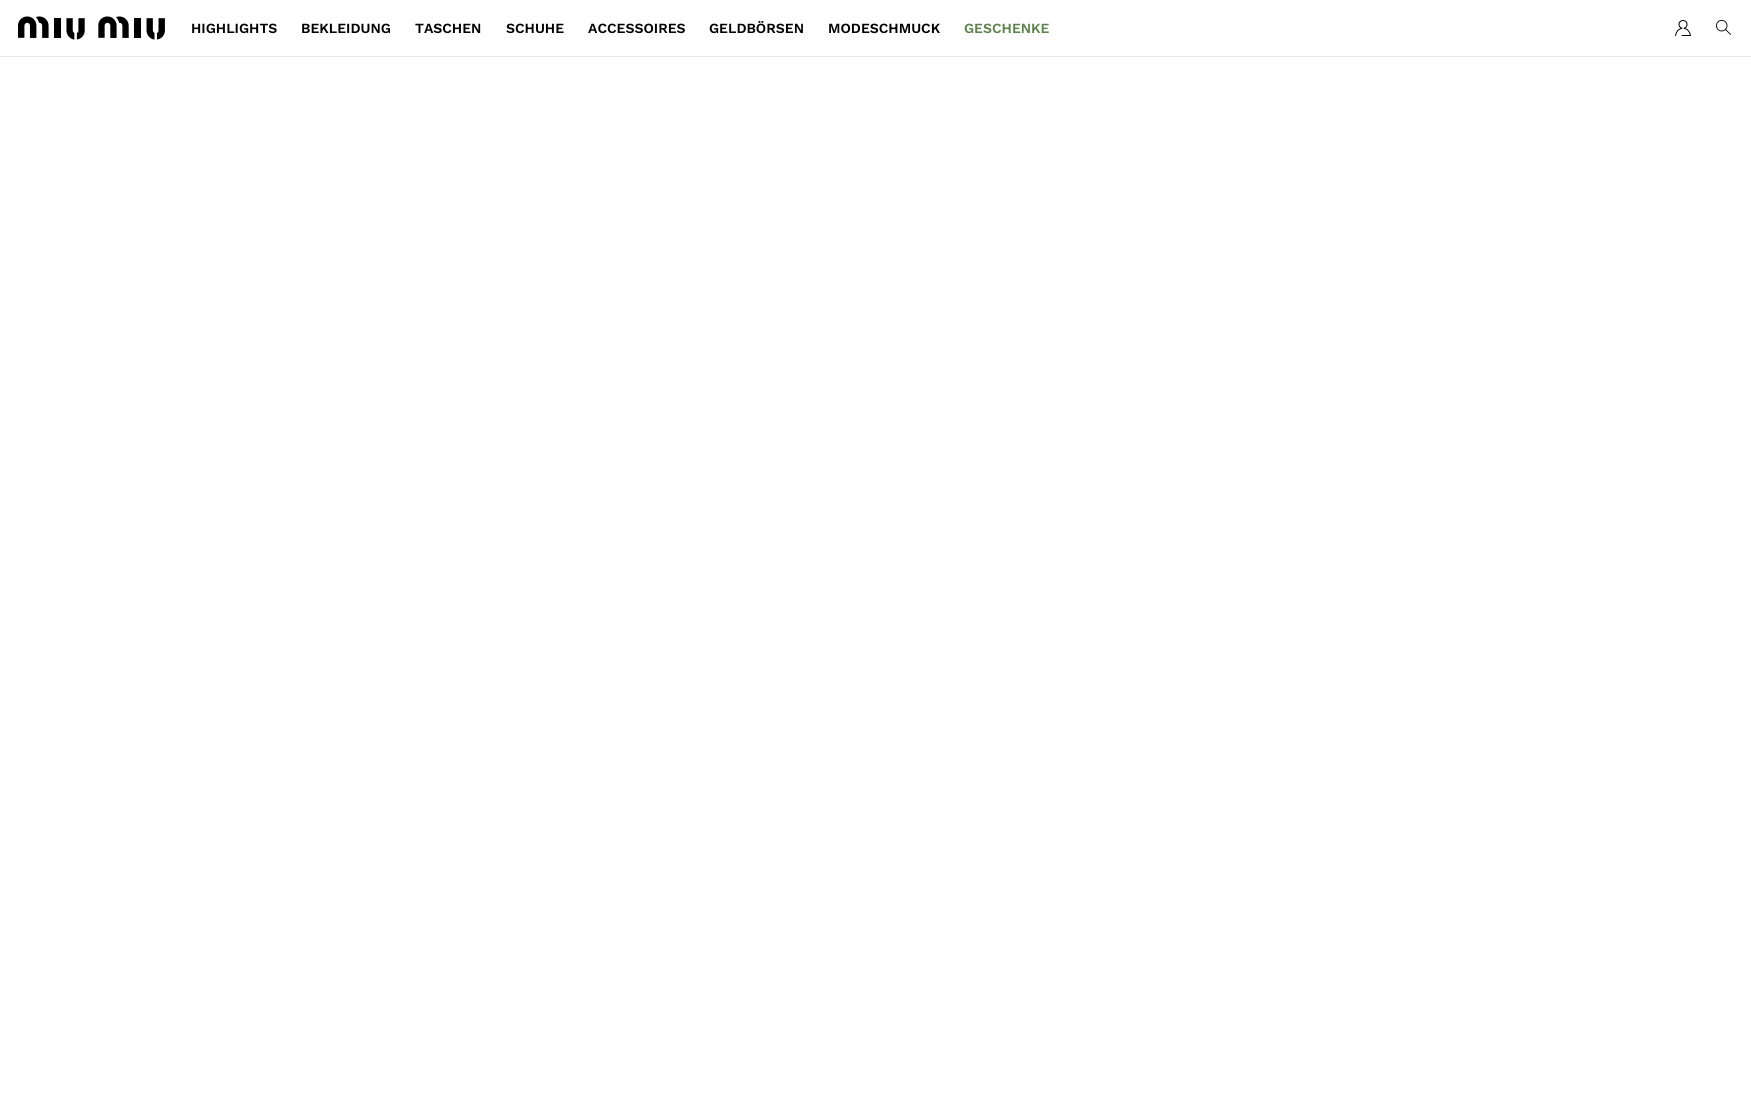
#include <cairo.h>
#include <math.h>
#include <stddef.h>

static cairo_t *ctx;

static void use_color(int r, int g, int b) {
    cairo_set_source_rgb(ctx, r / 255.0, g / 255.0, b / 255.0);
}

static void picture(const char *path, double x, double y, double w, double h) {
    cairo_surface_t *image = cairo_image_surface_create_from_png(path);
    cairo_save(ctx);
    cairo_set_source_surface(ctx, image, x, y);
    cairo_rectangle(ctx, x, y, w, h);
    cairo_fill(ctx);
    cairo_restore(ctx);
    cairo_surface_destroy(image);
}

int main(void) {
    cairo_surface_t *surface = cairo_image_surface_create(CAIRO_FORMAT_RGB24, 1751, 1096);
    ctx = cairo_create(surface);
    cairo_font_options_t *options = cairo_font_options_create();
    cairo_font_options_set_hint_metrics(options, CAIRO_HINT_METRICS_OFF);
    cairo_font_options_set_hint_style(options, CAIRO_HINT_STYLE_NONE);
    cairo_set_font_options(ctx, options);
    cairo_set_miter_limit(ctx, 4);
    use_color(255, 255, 255);
    cairo_paint(ctx);
    use_color(233, 233, 233);
    cairo_rectangle(ctx, 0, 56, 1751, 1);
    cairo_fill(ctx);
    picture("img1.png", 18, 16, 147, 24);
    cairo_select_font_face(ctx, "Work Sans SemiBold", CAIRO_FONT_SLANT_NORMAL, CAIRO_FONT_WEIGHT_NORMAL);
    cairo_set_font_size(ctx, 14);
    use_color(0, 0, 0);
    cairo_move_to(ctx, 191, 33);
    cairo_show_text(ctx, "HIGHLIGHTS");
    cairo_move_to(ctx, 301, 33);
    cairo_show_text(ctx, "BEKLEIDUNG");
    cairo_move_to(ctx, 415, 33);
    cairo_show_text(ctx, "TASCHEN");
    cairo_move_to(ctx, 506, 33);
    cairo_show_text(ctx, "SCHUHE");
    cairo_move_to(ctx, 588, 33);
    cairo_show_text(ctx, "ACCESSOIRES");
    cairo_move_to(ctx, 709, 33);
    cairo_show_text(ctx, "GELDBÖRSEN");
    cairo_move_to(ctx, 828, 33);
    cairo_show_text(ctx, "MODESCHMUCK");
    use_color(94, 130, 77);
    cairo_move_to(ctx, 964, 33);
    cairo_show_text(ctx, "GESCHENKE");
    picture("img2.png", 1675, 20, 16, 16);
    picture("img3.png", 1716, 19, 15, 16);
    cairo_surface_write_to_png(surface, "result.png");
    cairo_font_options_destroy(options);
    cairo_destroy(ctx);
    cairo_surface_destroy(surface);
    return 0;
}
